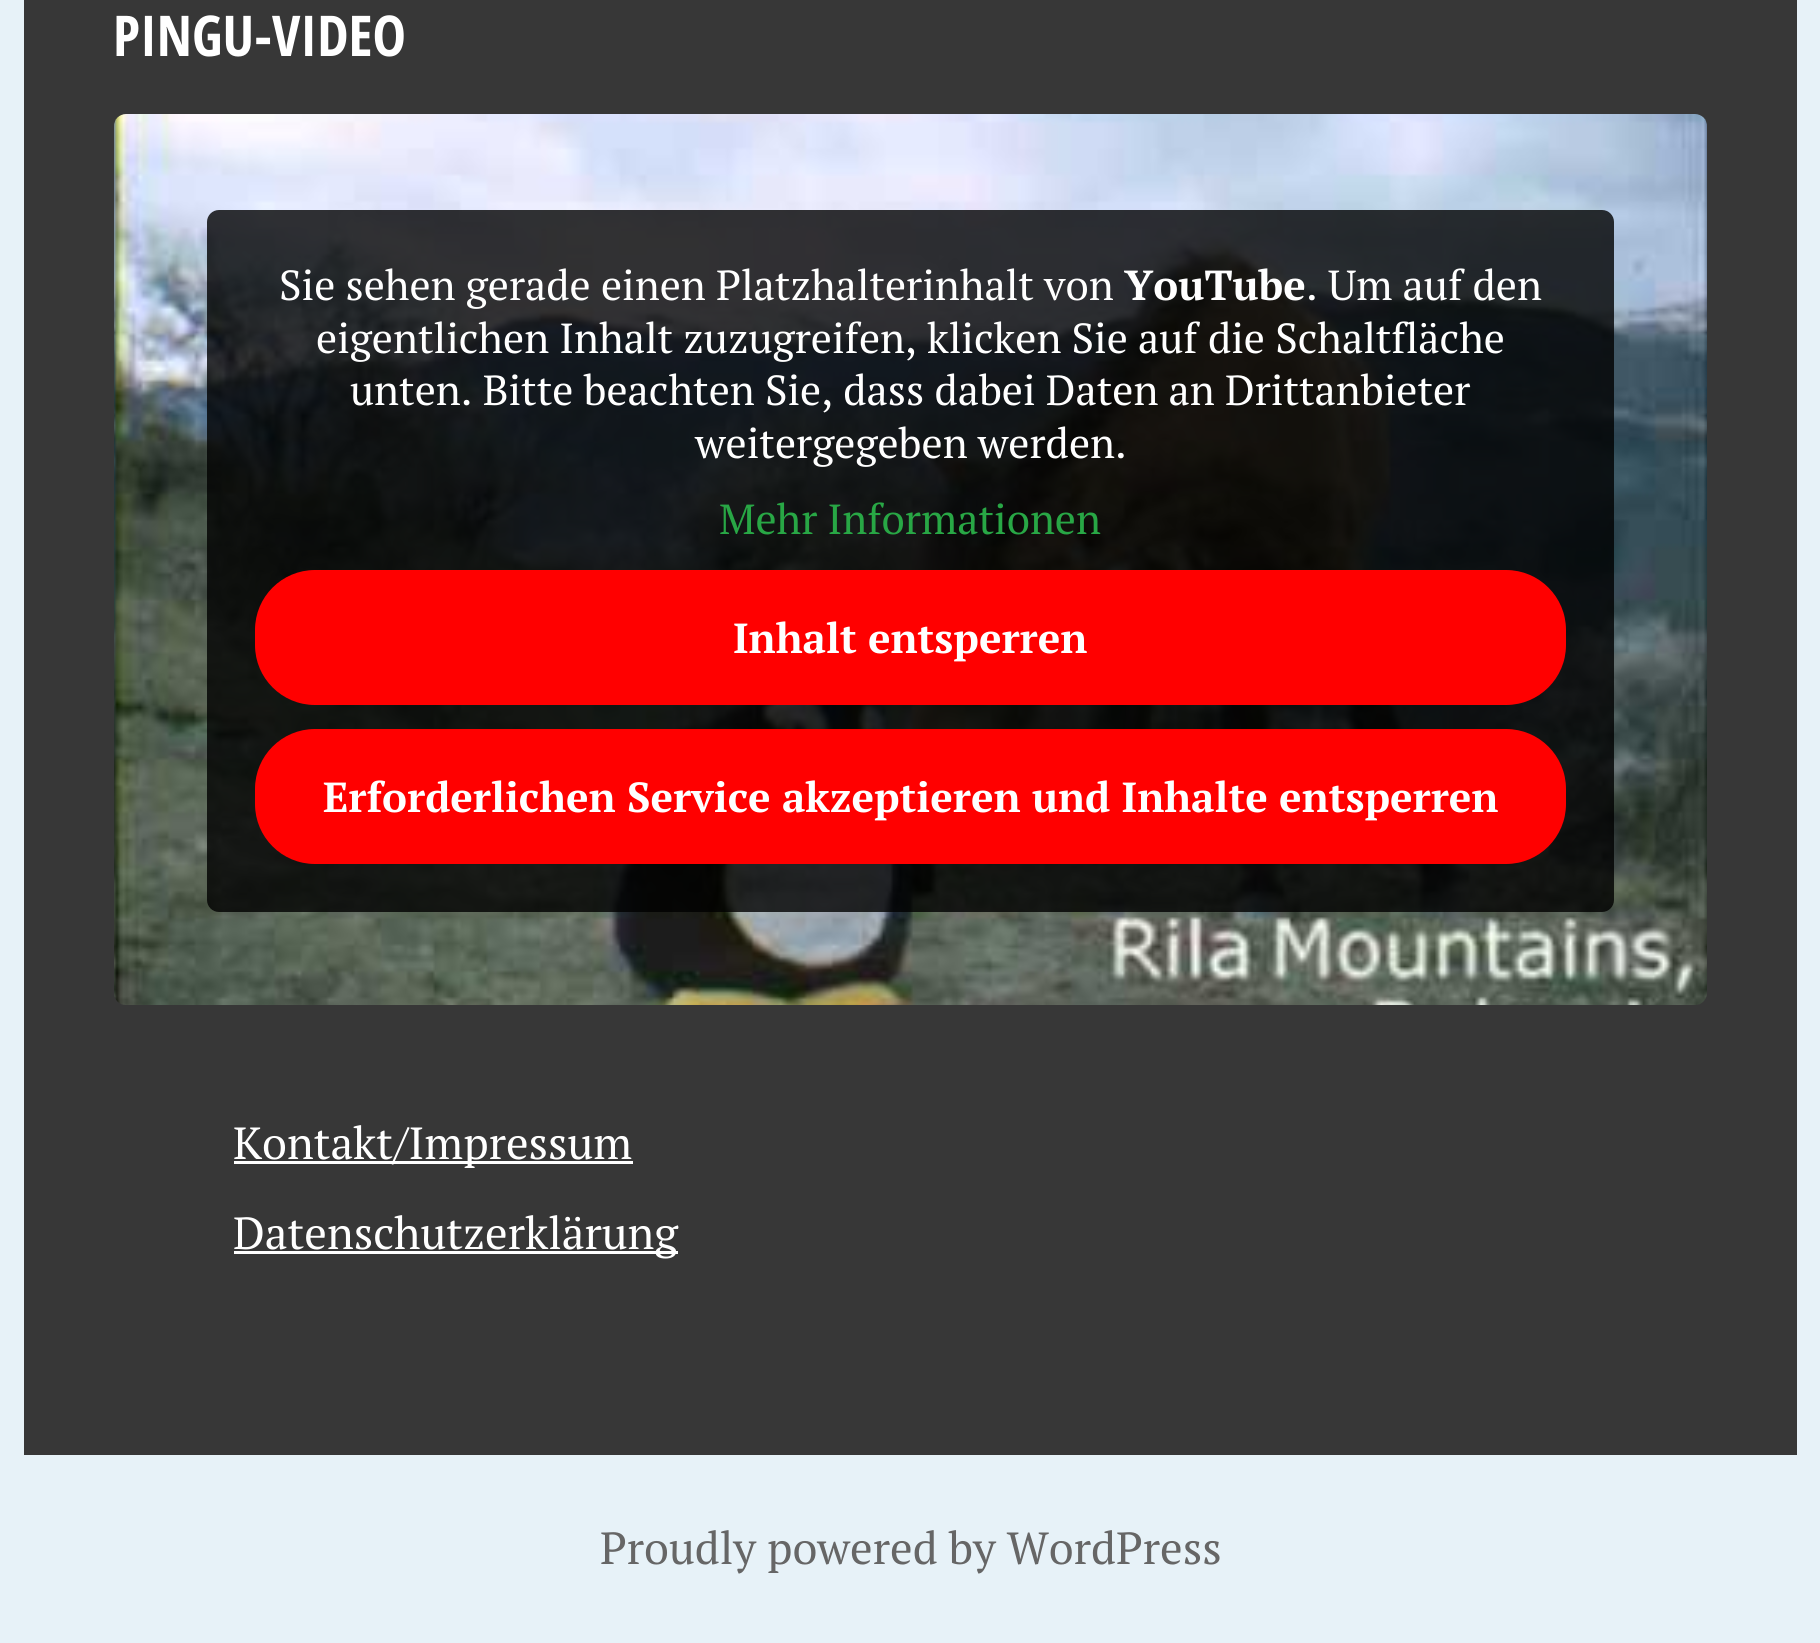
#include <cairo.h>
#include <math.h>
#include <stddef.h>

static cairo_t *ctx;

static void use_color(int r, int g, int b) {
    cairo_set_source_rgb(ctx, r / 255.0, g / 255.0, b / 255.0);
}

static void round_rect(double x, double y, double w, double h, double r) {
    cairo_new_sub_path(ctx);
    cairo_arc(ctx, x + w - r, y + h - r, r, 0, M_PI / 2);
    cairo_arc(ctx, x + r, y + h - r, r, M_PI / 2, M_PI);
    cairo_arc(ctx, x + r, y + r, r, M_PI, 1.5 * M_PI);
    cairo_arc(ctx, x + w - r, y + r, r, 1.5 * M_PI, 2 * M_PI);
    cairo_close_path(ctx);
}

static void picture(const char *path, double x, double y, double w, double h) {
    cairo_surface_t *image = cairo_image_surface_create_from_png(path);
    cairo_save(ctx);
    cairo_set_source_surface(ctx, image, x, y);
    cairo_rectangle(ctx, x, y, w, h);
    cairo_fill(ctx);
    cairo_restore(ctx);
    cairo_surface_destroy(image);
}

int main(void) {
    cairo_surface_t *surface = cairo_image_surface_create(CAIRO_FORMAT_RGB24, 1820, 1643);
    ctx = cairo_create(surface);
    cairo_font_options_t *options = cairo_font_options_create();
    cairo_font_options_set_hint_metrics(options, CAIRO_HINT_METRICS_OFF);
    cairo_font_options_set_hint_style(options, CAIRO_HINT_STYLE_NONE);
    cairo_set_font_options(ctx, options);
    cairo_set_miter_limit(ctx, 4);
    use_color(231, 242, 248);
    cairo_paint(ctx);
    use_color(55, 55, 55);
    cairo_rectangle(ctx, 24, 0, 1773, 1455);
    cairo_fill(ctx);
    cairo_select_font_face(ctx, "Open Sans Condensed", CAIRO_FONT_SLANT_NORMAL, CAIRO_FONT_WEIGHT_BOLD);
    cairo_set_font_size(ctx, 56.25);
    use_color(255, 255, 255);
    cairo_move_to(ctx, 113, 56);
    cairo_show_text(ctx, "PINGU-VIDEO");
    picture("img1.png", 114, 114, 1593, 891);
    cairo_set_source_rgba(ctx, 0, 0, 0, 0.8);
    round_rect(207, 210, 1407, 702, 12);
    cairo_fill(ctx);
    cairo_select_font_face(ctx, "PT Serif", CAIRO_FONT_SLANT_NORMAL, CAIRO_FONT_WEIGHT_NORMAL);
    cairo_set_font_size(ctx, 42);
    use_color(255, 255, 255);
    cairo_move_to(ctx, 279, 300);
    cairo_show_text(ctx, "Sie sehen gerade einen Platzhalterinhalt von");
    cairo_select_font_face(ctx, "PT Serif", CAIRO_FONT_SLANT_NORMAL, CAIRO_FONT_WEIGHT_BOLD);
    cairo_move_to(ctx, 1124, 300);
    cairo_show_text(ctx, "YouTube");
    cairo_select_font_face(ctx, "PT Serif", CAIRO_FONT_SLANT_NORMAL, CAIRO_FONT_WEIGHT_NORMAL);
    cairo_move_to(ctx, 1306, 300);
    cairo_show_text(ctx, ". Um auf den");
    cairo_move_to(ctx, 316, 353);
    cairo_show_text(ctx, "eigentlichen Inhalt zuzugreifen, klicken Sie auf die Schaltfläche");
    cairo_move_to(ctx, 350, 405);
    cairo_show_text(ctx, "unten. Bitte beachten Sie, dass dabei Daten an Drittanbieter");
    cairo_move_to(ctx, 695, 458);
    cairo_show_text(ctx, "weitergegeben werden.");
    use_color(40, 167, 69);
    cairo_move_to(ctx, 719, 534);
    cairo_show_text(ctx, "Mehr Informationen");
    use_color(255, 0, 0);
    round_rect(255, 570, 1311, 135, 60);
    cairo_fill(ctx);
    cairo_select_font_face(ctx, "PT Serif", CAIRO_FONT_SLANT_NORMAL, CAIRO_FONT_WEIGHT_BOLD);
    use_color(255, 255, 255);
    cairo_move_to(ctx, 733, 653);
    cairo_show_text(ctx, "Inhalt entsperren");
    use_color(255, 0, 0);
    round_rect(255, 729, 1311, 135, 60);
    cairo_fill(ctx);
    use_color(255, 255, 255);
    cairo_move_to(ctx, 323, 812);
    cairo_show_text(ctx, "Erforderlichen Service akzeptieren und Inhalte entsperren");
    cairo_rectangle(ctx, 234, 1161, 399, 3);
    cairo_fill(ctx);
    cairo_select_font_face(ctx, "PT Serif", CAIRO_FONT_SLANT_NORMAL, CAIRO_FONT_WEIGHT_NORMAL);
    cairo_set_font_size(ctx, 45);
    cairo_move_to(ctx, 233, 1159);
    cairo_show_text(ctx, "Kontakt/Impressum");
    cairo_rectangle(ctx, 234, 1251, 444, 3);
    cairo_fill(ctx);
    cairo_move_to(ctx, 233, 1249);
    cairo_show_text(ctx, "Datenschutzerklärung");
    use_color(102, 102, 102);
    cairo_move_to(ctx, 600, 1564);
    cairo_show_text(ctx, "Proudly powered by WordPress");
    cairo_surface_write_to_png(surface, "result.png");
    cairo_font_options_destroy(options);
    cairo_destroy(ctx);
    cairo_surface_destroy(surface);
    return 0;
}
